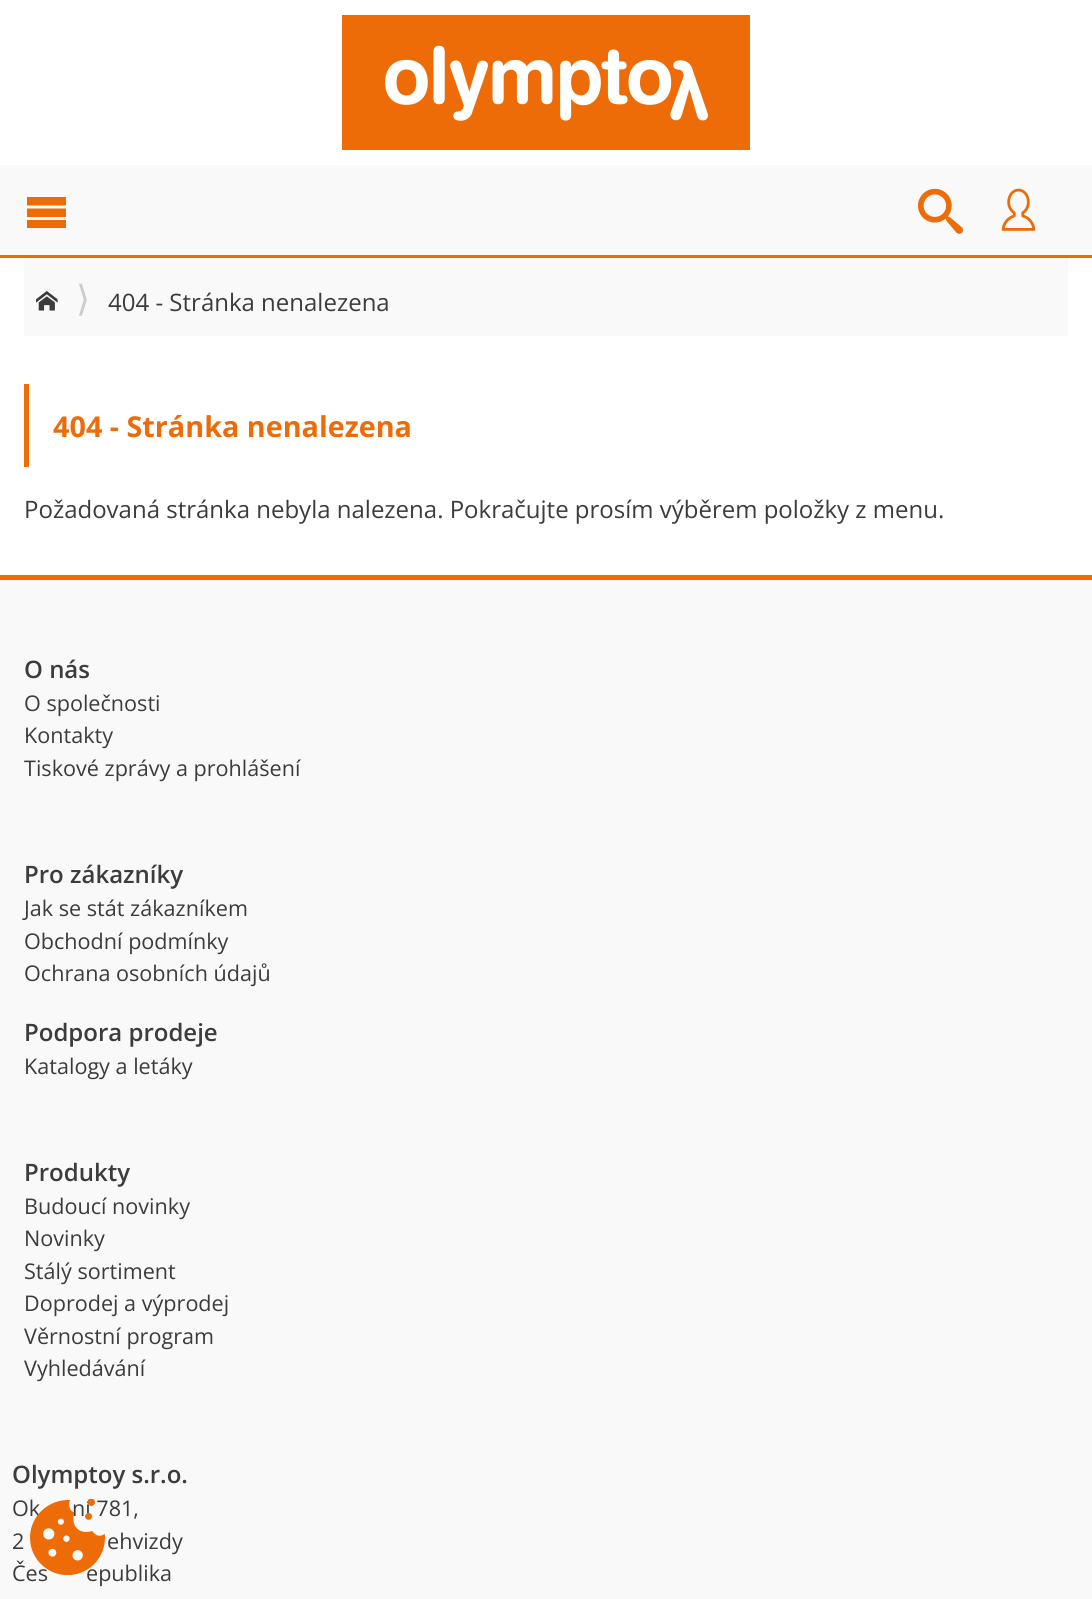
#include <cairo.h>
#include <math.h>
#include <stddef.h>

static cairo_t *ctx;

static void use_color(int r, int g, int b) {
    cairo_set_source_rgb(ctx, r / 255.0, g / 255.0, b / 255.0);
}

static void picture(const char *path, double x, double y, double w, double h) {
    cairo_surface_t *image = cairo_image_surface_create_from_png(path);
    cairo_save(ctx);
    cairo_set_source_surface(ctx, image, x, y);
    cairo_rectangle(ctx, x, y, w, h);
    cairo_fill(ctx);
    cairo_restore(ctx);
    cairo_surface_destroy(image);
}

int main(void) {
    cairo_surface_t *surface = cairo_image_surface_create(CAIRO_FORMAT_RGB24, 1092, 1599);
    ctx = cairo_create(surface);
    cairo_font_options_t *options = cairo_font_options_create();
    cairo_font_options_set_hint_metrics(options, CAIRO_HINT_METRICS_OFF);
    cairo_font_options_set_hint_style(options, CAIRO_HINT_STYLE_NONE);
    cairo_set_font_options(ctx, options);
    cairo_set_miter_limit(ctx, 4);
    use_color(249, 249, 249);
    cairo_paint(ctx);
    use_color(255, 255, 255);
    cairo_rectangle(ctx, 0, 0, 1092, 165);
    cairo_fill(ctx);
    use_color(237, 108, 8);
    cairo_rectangle(ctx, 0, 255, 1092, 3);
    cairo_fill(ctx);
    picture("img1.png", 342, 15, 408, 135);
    cairo_new_path(ctx);
    cairo_move_to(ctx, 27, 197);
    cairo_line_to(ctx, 66, 197);
    cairo_line_to(ctx, 66, 205.5);
    cairo_line_to(ctx, 27, 205.5);
    cairo_close_path(ctx);
    cairo_move_to(ctx, 27, 208.5);
    cairo_line_to(ctx, 66, 208.5);
    cairo_line_to(ctx, 66, 217);
    cairo_line_to(ctx, 27, 217);
    cairo_close_path(ctx);
    cairo_move_to(ctx, 27, 220);
    cairo_line_to(ctx, 66, 220);
    cairo_line_to(ctx, 66, 228);
    cairo_line_to(ctx, 27, 228);
    cairo_close_path(ctx);
    cairo_fill(ctx);
    picture("img2.png", 918, 188, 45, 46);
    picture("img3.png", 1001, 188, 35, 43);
    use_color(255, 255, 255);
    cairo_rectangle(ctx, 0, 258, 1092, 317);
    cairo_fill(ctx);
    use_color(249, 249, 249);
    cairo_rectangle(ctx, 24, 258, 1044, 78);
    cairo_fill(ctx);
    picture("img4.png", 36, 291, 22, 20);
    cairo_select_font_face(ctx, "DejaVu Sans", CAIRO_FONT_SLANT_NORMAL, CAIRO_FONT_WEIGHT_NORMAL);
    cairo_set_font_size(ctx, 36);
    use_color(204, 204, 204);
    cairo_move_to(ctx, 76, 311);
    cairo_show_text(ctx, "⟩");
    cairo_select_font_face(ctx, "Open Sans", CAIRO_FONT_SLANT_NORMAL, CAIRO_FONT_WEIGHT_NORMAL);
    cairo_set_font_size(ctx, 24);
    use_color(60, 60, 60);
    cairo_move_to(ctx, 108, 311);
    cairo_show_text(ctx, "404 - Stránka nenalezena");
    use_color(237, 108, 8);
    cairo_rectangle(ctx, 24, 384, 5, 83);
    cairo_fill(ctx);
    cairo_select_font_face(ctx, "Open Sans", CAIRO_FONT_SLANT_NORMAL, CAIRO_FONT_WEIGHT_BOLD);
    cairo_set_font_size(ctx, 28.75);
    cairo_move_to(ctx, 53, 437);
    cairo_show_text(ctx, "404 - Stránka nenalezena");
    cairo_select_font_face(ctx, "Open Sans", CAIRO_FONT_SLANT_NORMAL, CAIRO_FONT_WEIGHT_NORMAL);
    cairo_set_font_size(ctx, 24);
    use_color(60, 60, 60);
    cairo_move_to(ctx, 24, 518);
    cairo_show_text(ctx, "Požadovaná stránka nebyla nalezena. Pokračujte prosím výběrem položky z menu.");
    use_color(237, 108, 8);
    cairo_rectangle(ctx, 0, 575, 1092, 5);
    cairo_fill(ctx);
    cairo_select_font_face(ctx, "Open Sans SemiBold", CAIRO_FONT_SLANT_NORMAL, CAIRO_FONT_WEIGHT_NORMAL);
    use_color(60, 60, 60);
    cairo_move_to(ctx, 24, 678);
    cairo_show_text(ctx, "O nás");
    cairo_select_font_face(ctx, "Open Sans", CAIRO_FONT_SLANT_NORMAL, CAIRO_FONT_WEIGHT_NORMAL);
    cairo_set_font_size(ctx, 21.6);
    cairo_move_to(ctx, 24, 711);
    cairo_show_text(ctx, "O společnosti");
    cairo_move_to(ctx, 24, 743);
    cairo_show_text(ctx, "Kontakty");
    cairo_move_to(ctx, 24, 776);
    cairo_show_text(ctx, "Tiskové zprávy a prohlášení");
    cairo_select_font_face(ctx, "Open Sans SemiBold", CAIRO_FONT_SLANT_NORMAL, CAIRO_FONT_WEIGHT_NORMAL);
    cairo_set_font_size(ctx, 24);
    cairo_move_to(ctx, 24, 883);
    cairo_show_text(ctx, "Pro zákazníky");
    cairo_select_font_face(ctx, "Open Sans", CAIRO_FONT_SLANT_NORMAL, CAIRO_FONT_WEIGHT_NORMAL);
    cairo_set_font_size(ctx, 21.6);
    cairo_move_to(ctx, 24, 916);
    cairo_show_text(ctx, "Jak se stát zákazníkem");
    cairo_move_to(ctx, 24, 949);
    cairo_show_text(ctx, "Obchodní podmínky");
    cairo_move_to(ctx, 24, 981);
    cairo_show_text(ctx, "Ochrana osobních údajů");
    cairo_select_font_face(ctx, "Open Sans SemiBold", CAIRO_FONT_SLANT_NORMAL, CAIRO_FONT_WEIGHT_NORMAL);
    cairo_set_font_size(ctx, 24);
    cairo_move_to(ctx, 24, 1041);
    cairo_show_text(ctx, "Podpora prodeje");
    cairo_select_font_face(ctx, "Open Sans", CAIRO_FONT_SLANT_NORMAL, CAIRO_FONT_WEIGHT_NORMAL);
    cairo_set_font_size(ctx, 21.6);
    cairo_move_to(ctx, 24, 1074);
    cairo_show_text(ctx, "Katalogy a letáky");
    cairo_select_font_face(ctx, "Open Sans SemiBold", CAIRO_FONT_SLANT_NORMAL, CAIRO_FONT_WEIGHT_NORMAL);
    cairo_set_font_size(ctx, 24);
    cairo_move_to(ctx, 24, 1181);
    cairo_show_text(ctx, "Produkty");
    cairo_select_font_face(ctx, "Open Sans", CAIRO_FONT_SLANT_NORMAL, CAIRO_FONT_WEIGHT_NORMAL);
    cairo_set_font_size(ctx, 21.6);
    cairo_move_to(ctx, 24, 1214);
    cairo_show_text(ctx, "Budoucí novinky");
    cairo_move_to(ctx, 24, 1246);
    cairo_show_text(ctx, "Novinky");
    cairo_move_to(ctx, 24, 1279);
    cairo_show_text(ctx, "Stálý sortiment");
    cairo_move_to(ctx, 24, 1311);
    cairo_show_text(ctx, "Doprodej a výprodej");
    cairo_move_to(ctx, 24, 1344);
    cairo_show_text(ctx, "Věrnostní program");
    cairo_move_to(ctx, 24, 1376);
    cairo_show_text(ctx, "Vyhledávání");
    cairo_select_font_face(ctx, "Open Sans SemiBold", CAIRO_FONT_SLANT_NORMAL, CAIRO_FONT_WEIGHT_NORMAL);
    cairo_set_font_size(ctx, 24);
    cairo_move_to(ctx, 12, 1483);
    cairo_show_text(ctx, "Olymptoy s.r.o.");
    cairo_select_font_face(ctx, "Open Sans", CAIRO_FONT_SLANT_NORMAL, CAIRO_FONT_WEIGHT_NORMAL);
    cairo_set_font_size(ctx, 21.6);
    cairo_move_to(ctx, 12, 1516);
    cairo_show_text(ctx, "Ok");
    cairo_move_to(ctx, 72, 1516);
    cairo_show_text(ctx, "ní 781,");
    cairo_move_to(ctx, 12, 1549);
    cairo_show_text(ctx, "2");
    cairo_move_to(ctx, 107, 1549);
    cairo_show_text(ctx, "ehvizdy");
    cairo_move_to(ctx, 12, 1581);
    cairo_show_text(ctx, "Čes");
    cairo_move_to(ctx, 86, 1581);
    cairo_show_text(ctx, "epublika");
    picture("img5.png", 30, 1499, 75, 76);
    cairo_surface_write_to_png(surface, "result.png");
    cairo_font_options_destroy(options);
    cairo_destroy(ctx);
    cairo_surface_destroy(surface);
    return 0;
}
